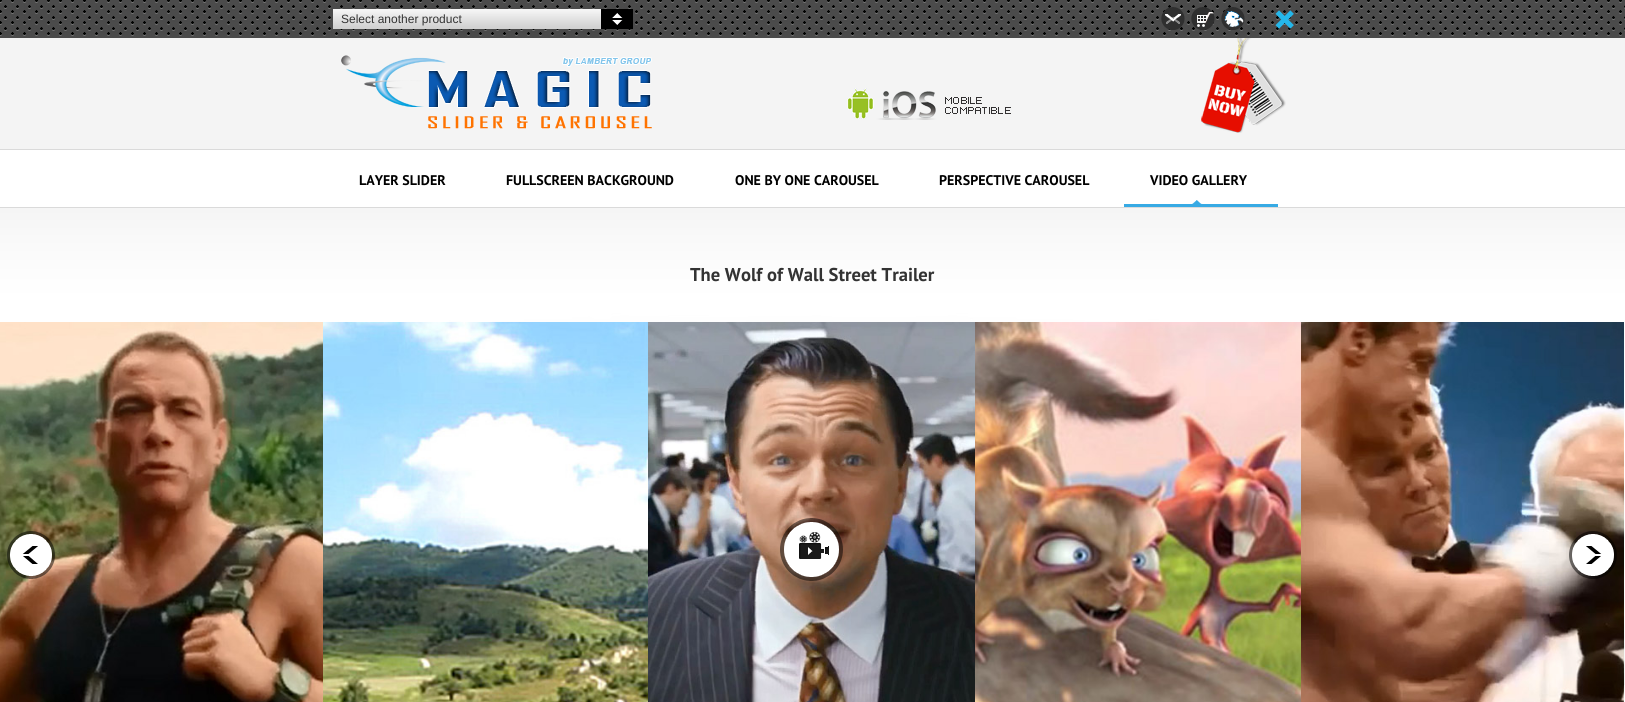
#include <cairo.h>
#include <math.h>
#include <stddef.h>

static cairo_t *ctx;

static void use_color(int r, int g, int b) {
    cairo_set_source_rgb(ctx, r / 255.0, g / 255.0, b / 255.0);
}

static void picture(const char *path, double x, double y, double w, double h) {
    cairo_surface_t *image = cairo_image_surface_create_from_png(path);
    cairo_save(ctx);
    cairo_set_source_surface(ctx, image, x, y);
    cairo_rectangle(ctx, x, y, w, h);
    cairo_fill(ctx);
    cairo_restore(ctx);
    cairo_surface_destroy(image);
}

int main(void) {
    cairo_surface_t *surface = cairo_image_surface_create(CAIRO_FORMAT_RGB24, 1625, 702);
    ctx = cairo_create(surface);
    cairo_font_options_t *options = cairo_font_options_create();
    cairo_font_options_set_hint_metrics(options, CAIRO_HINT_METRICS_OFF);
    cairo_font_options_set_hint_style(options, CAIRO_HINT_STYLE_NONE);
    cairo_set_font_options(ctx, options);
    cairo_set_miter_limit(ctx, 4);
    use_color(255, 255, 255);
    cairo_paint(ctx);
    picture("img1.png", 0, 0, 1625, 38);
    picture("img2.png", 333, 9, 268, 20);
    cairo_select_font_face(ctx, "Liberation Sans", CAIRO_FONT_SLANT_NORMAL, CAIRO_FONT_WEIGHT_NORMAL);
    cairo_set_font_size(ctx, 12);
    use_color(51, 51, 51);
    cairo_move_to(ctx, 341, 23);
    cairo_show_text(ctx, "Select another product");
    use_color(0, 0, 0);
    cairo_rectangle(ctx, 601, 9, 32, 20);
    cairo_fill(ctx);
    picture("img3.png", 612, 13, 11, 12);
    picture("img4.png", 1161, 7, 24, 23);
    picture("img5.png", 1165, 14, 16, 10);
    picture("img6.png", 1191, 7, 24, 23);
    picture("img7.png", 1197, 12, 17, 15);
    picture("img4.png", 1221, 7, 24, 23);
    picture("img8.png", 1224, 11, 20, 16);
    picture("img9.png", 1275, 10, 19, 19);
    use_color(244, 244, 244);
    cairo_rectangle(ctx, 0, 38, 1625, 111);
    cairo_fill(ctx);
    picture("img10.png", 847, 88, 164, 32);
    use_color(218, 218, 218);
    cairo_rectangle(ctx, 0, 149, 1625, 1);
    cairo_fill(ctx);
    picture("img11.png", 341, 55, 311, 74);
    picture("img12.png", 1201, 38, 85, 95);
    cairo_rectangle(ctx, 0, 207, 1625, 1);
    cairo_fill(ctx);
    cairo_select_font_face(ctx, "PT Sans", CAIRO_FONT_SLANT_NORMAL, CAIRO_FONT_WEIGHT_BOLD);
    cairo_set_font_size(ctx, 14);
    use_color(0, 0, 0);
    cairo_move_to(ctx, 359, 185);
    cairo_show_text(ctx, "LAYER SLIDER");
    cairo_move_to(ctx, 506, 185);
    cairo_show_text(ctx, "FULLSCREEN BACKGROUND");
    cairo_move_to(ctx, 735, 185);
    cairo_show_text(ctx, "ONE BY ONE CAROUSEL");
    cairo_move_to(ctx, 939, 185);
    cairo_show_text(ctx, "PERSPECTIVE CAROUSEL");
    cairo_move_to(ctx, 1150, 185);
    cairo_show_text(ctx, "VIDEO GALLERY");
    picture("img13.png", 1124, 200, 154, 7);
    picture("img14.png", 0, 208, 1625, 477);
    cairo_set_font_size(ctx, 18.6);
    use_color(51, 51, 51);
    cairo_move_to(ctx, 690, 281);
    cairo_show_text(ctx, "The Wolf of Wall Street Trailer");
    picture("img15.png", 0, 322, 323, 380);
    picture("img16.png", 323, 322, 325, 380);
    picture("img17.png", 648, 322, 327, 380);
    picture("img18.png", 975, 322, 326, 380);
    picture("img19.png", 1301, 322, 323, 380);
    picture("img20.png", 780, 518, 63, 63);
    picture("img21.png", 7, 531, 48, 48);
    picture("img22.png", 1569, 531, 48, 48);
    cairo_surface_write_to_png(surface, "result.png");
    cairo_font_options_destroy(options);
    cairo_destroy(ctx);
    cairo_surface_destroy(surface);
    return 0;
}
